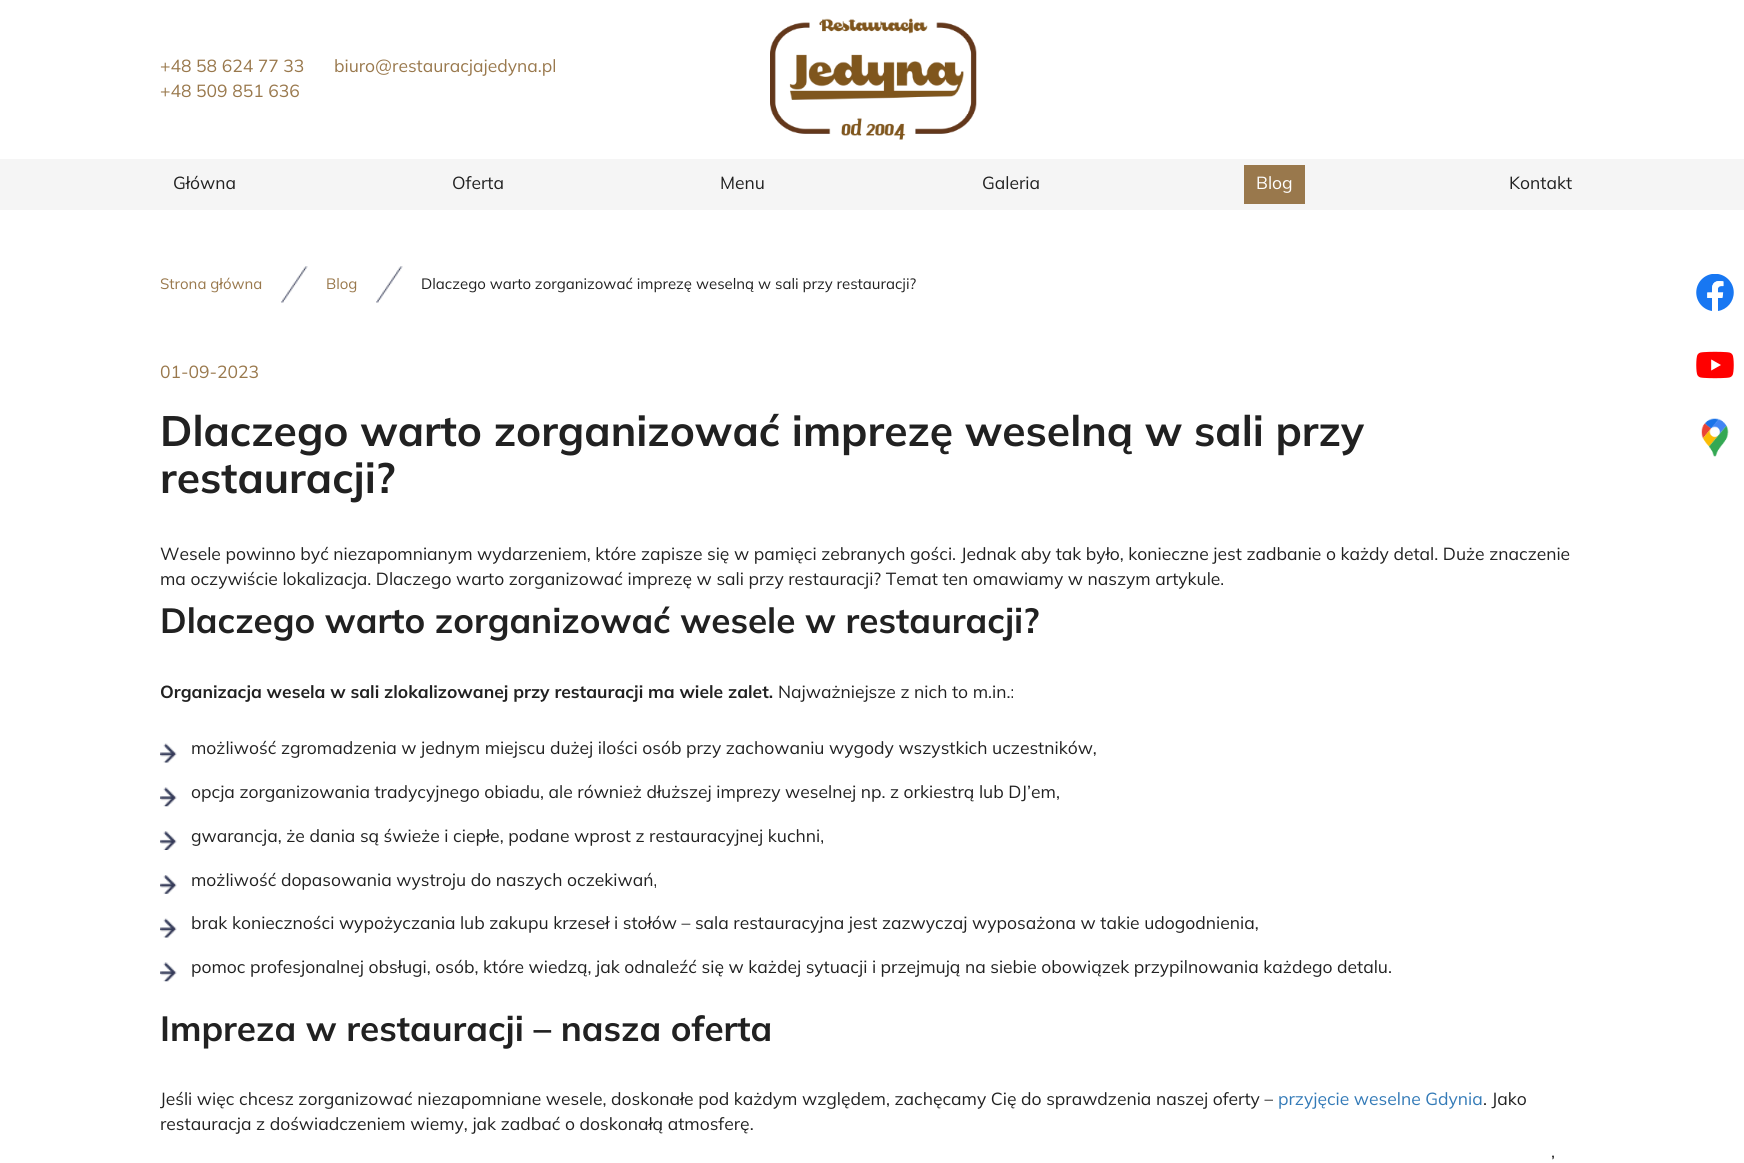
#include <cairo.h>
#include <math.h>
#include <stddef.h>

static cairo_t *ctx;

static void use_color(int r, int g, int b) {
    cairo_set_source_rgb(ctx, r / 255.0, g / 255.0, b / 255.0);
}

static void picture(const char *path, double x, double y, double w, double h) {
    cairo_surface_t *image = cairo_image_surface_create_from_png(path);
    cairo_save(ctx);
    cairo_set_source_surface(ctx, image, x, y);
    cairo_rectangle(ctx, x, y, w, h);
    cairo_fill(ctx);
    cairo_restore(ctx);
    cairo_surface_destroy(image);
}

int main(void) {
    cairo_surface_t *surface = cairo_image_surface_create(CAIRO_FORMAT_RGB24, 1744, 1163);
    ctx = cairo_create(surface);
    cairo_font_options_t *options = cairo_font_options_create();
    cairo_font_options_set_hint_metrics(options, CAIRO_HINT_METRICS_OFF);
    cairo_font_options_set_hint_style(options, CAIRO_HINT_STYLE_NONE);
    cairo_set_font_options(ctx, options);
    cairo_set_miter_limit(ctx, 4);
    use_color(255, 255, 255);
    cairo_paint(ctx);
    cairo_select_font_face(ctx, "Mulish", CAIRO_FONT_SLANT_NORMAL, CAIRO_FONT_WEIGHT_NORMAL);
    cairo_set_font_size(ctx, 17.5);
    use_color(153, 120, 76);
    cairo_move_to(ctx, 160, 72);
    cairo_show_text(ctx, "+48 58 624 77 33");
    cairo_move_to(ctx, 334, 72);
    cairo_show_text(ctx, "biuro@restauracjajedyna.pl");
    cairo_move_to(ctx, 160, 97);
    cairo_show_text(ctx, "+48 509 851 636");
    picture("img1.png", 770, 18, 207, 122);
    use_color(245, 245, 245);
    cairo_rectangle(ctx, 0, 159, 1744, 51);
    cairo_fill(ctx);
    use_color(33, 33, 33);
    cairo_move_to(ctx, 173, 189);
    cairo_show_text(ctx, "Główna");
    cairo_move_to(ctx, 452, 189);
    cairo_show_text(ctx, "Oferta");
    cairo_move_to(ctx, 720, 189);
    cairo_show_text(ctx, "Menu");
    cairo_move_to(ctx, 982, 189);
    cairo_show_text(ctx, "Galeria");
    use_color(153, 120, 76);
    cairo_rectangle(ctx, 1244, 165, 61, 39);
    cairo_fill(ctx);
    use_color(255, 255, 255);
    cairo_move_to(ctx, 1256, 189);
    cairo_show_text(ctx, "Blog");
    use_color(33, 33, 33);
    cairo_move_to(ctx, 1509, 189);
    cairo_show_text(ctx, "Kontakt");
    cairo_set_font_size(ctx, 15);
    use_color(153, 120, 76);
    cairo_move_to(ctx, 160, 289);
    cairo_show_text(ctx, "Strona główna");
    picture("img2.png", 281, 266, 27, 37);
    cairo_move_to(ctx, 326, 289);
    cairo_show_text(ctx, "Blog");
    picture("img2.png", 376, 266, 27, 37);
    use_color(33, 33, 33);
    cairo_move_to(ctx, 421, 289);
    cairo_show_text(ctx, "Dlaczego warto zorganizować imprezę weselną w sali przy restauracji?");
    cairo_set_font_size(ctx, 17.5);
    use_color(153, 120, 76);
    cairo_move_to(ctx, 160, 378);
    cairo_show_text(ctx, "01-09-2023");
    cairo_select_font_face(ctx, "Mulish", CAIRO_FONT_SLANT_NORMAL, CAIRO_FONT_WEIGHT_BOLD);
    cairo_set_font_size(ctx, 42.5);
    use_color(33, 33, 33);
    cairo_move_to(ctx, 160, 446);
    cairo_show_text(ctx, "Dlaczego warto zorganizować imprezę weselną w sali przy");
    cairo_move_to(ctx, 160, 493);
    cairo_show_text(ctx, "restauracji?");
    cairo_select_font_face(ctx, "Mulish", CAIRO_FONT_SLANT_NORMAL, CAIRO_FONT_WEIGHT_NORMAL);
    cairo_set_font_size(ctx, 17.5);
    cairo_move_to(ctx, 160, 560);
    cairo_show_text(ctx, "Wesele powinno być niezapomnianym wydarzeniem, które zapisze się w pamięci zebranych gości. Jednak aby tak było, konieczne jest zadbanie o każdy detal. Duże znaczenie");
    cairo_move_to(ctx, 160, 585);
    cairo_show_text(ctx, "ma oczywiście lokalizacja. Dlaczego warto zorganizować imprezę w sali przy restauracji? Temat ten omawiamy w naszym artykule.");
    cairo_select_font_face(ctx, "Mulish", CAIRO_FONT_SLANT_NORMAL, CAIRO_FONT_WEIGHT_BOLD);
    cairo_set_font_size(ctx, 35);
    cairo_move_to(ctx, 160, 633);
    cairo_show_text(ctx, "Dlaczego warto zorganizować wesele w restauracji?");
    cairo_set_font_size(ctx, 17.5);
    cairo_move_to(ctx, 160, 698);
    cairo_show_text(ctx, "Organizacja wesela w sali zlokalizowanej przy restauracji ma wiele zalet.");
    cairo_select_font_face(ctx, "Mulish", CAIRO_FONT_SLANT_NORMAL, CAIRO_FONT_WEIGHT_NORMAL);
    cairo_move_to(ctx, 778, 698);
    cairo_show_text(ctx, "Najważniejsze z nich to m.in.:");
    picture("img3.png", 160, 743, 17, 20);
    cairo_move_to(ctx, 191, 754);
    cairo_show_text(ctx, "możliwość zgromadzenia w jednym miejscu dużej ilości osób przy zachowaniu wygody wszystkich uczestników,");
    picture("img4.png", 160, 787, 17, 20);
    cairo_move_to(ctx, 191, 798);
    cairo_show_text(ctx, "opcja zorganizowania tradycyjnego obiadu, ale również dłuższej imprezy weselnej np. z orkiestrą lub DJ’em,");
    picture("img5.png", 160, 831, 17, 19);
    cairo_move_to(ctx, 191, 842);
    cairo_show_text(ctx, "gwarancja, że dania są świeże i ciepłe, podane wprost z restauracyjnej kuchni,");
    picture("img6.png", 160, 875, 17, 19);
    cairo_move_to(ctx, 191, 886);
    cairo_show_text(ctx, "możliwość dopasowania wystroju do naszych oczekiwań,");
    picture("img3.png", 160, 918, 17, 20);
    cairo_move_to(ctx, 191, 929);
    cairo_show_text(ctx, "brak konieczności wypożyczania lub zakupu krzeseł i stołów – sala restauracyjna jest zazwyczaj wyposażona w takie udogodnienia,");
    picture("img4.png", 160, 962, 17, 20);
    cairo_move_to(ctx, 191, 973);
    cairo_show_text(ctx, "pomoc profesjonalnej obsługi, osób, które wiedzą, jak odnaleźć się w każdej sytuacji i przejmują na siebie obowiązek przypilnowania każdego detalu.");
    cairo_select_font_face(ctx, "Mulish", CAIRO_FONT_SLANT_NORMAL, CAIRO_FONT_WEIGHT_BOLD);
    cairo_set_font_size(ctx, 35);
    cairo_move_to(ctx, 160, 1041);
    cairo_show_text(ctx, "Impreza w restauracji – nasza oferta");
    cairo_select_font_face(ctx, "Mulish", CAIRO_FONT_SLANT_NORMAL, CAIRO_FONT_WEIGHT_NORMAL);
    cairo_set_font_size(ctx, 17.5);
    cairo_move_to(ctx, 160, 1105);
    cairo_show_text(ctx, "Jeśli więc chcesz zorganizować niezapomniane wesele, doskonałe pod każdym względem, zachęcamy Cię do sprawdzenia naszej oferty –");
    use_color(51, 122, 183);
    cairo_move_to(ctx, 1278, 1105);
    cairo_show_text(ctx, "przyjęcie weselne Gdynia");
    use_color(33, 33, 33);
    cairo_move_to(ctx, 1483, 1105);
    cairo_show_text(ctx, ". Jako");
    cairo_move_to(ctx, 160, 1130);
    cairo_show_text(ctx, "restauracja z doświadczeniem wiemy, jak zadbać o doskonałą atmosferę.");
    cairo_move_to(ctx, 1551, 1168);
    cairo_show_text(ctx, "’");
    picture("img7.png", 1696, 274, 38, 37);
    picture("img8.png", 1696, 351, 38, 28);
    picture("img9.png", 1701, 418, 28, 39);
    cairo_surface_write_to_png(surface, "result.png");
    cairo_font_options_destroy(options);
    cairo_destroy(ctx);
    cairo_surface_destroy(surface);
    return 0;
}
